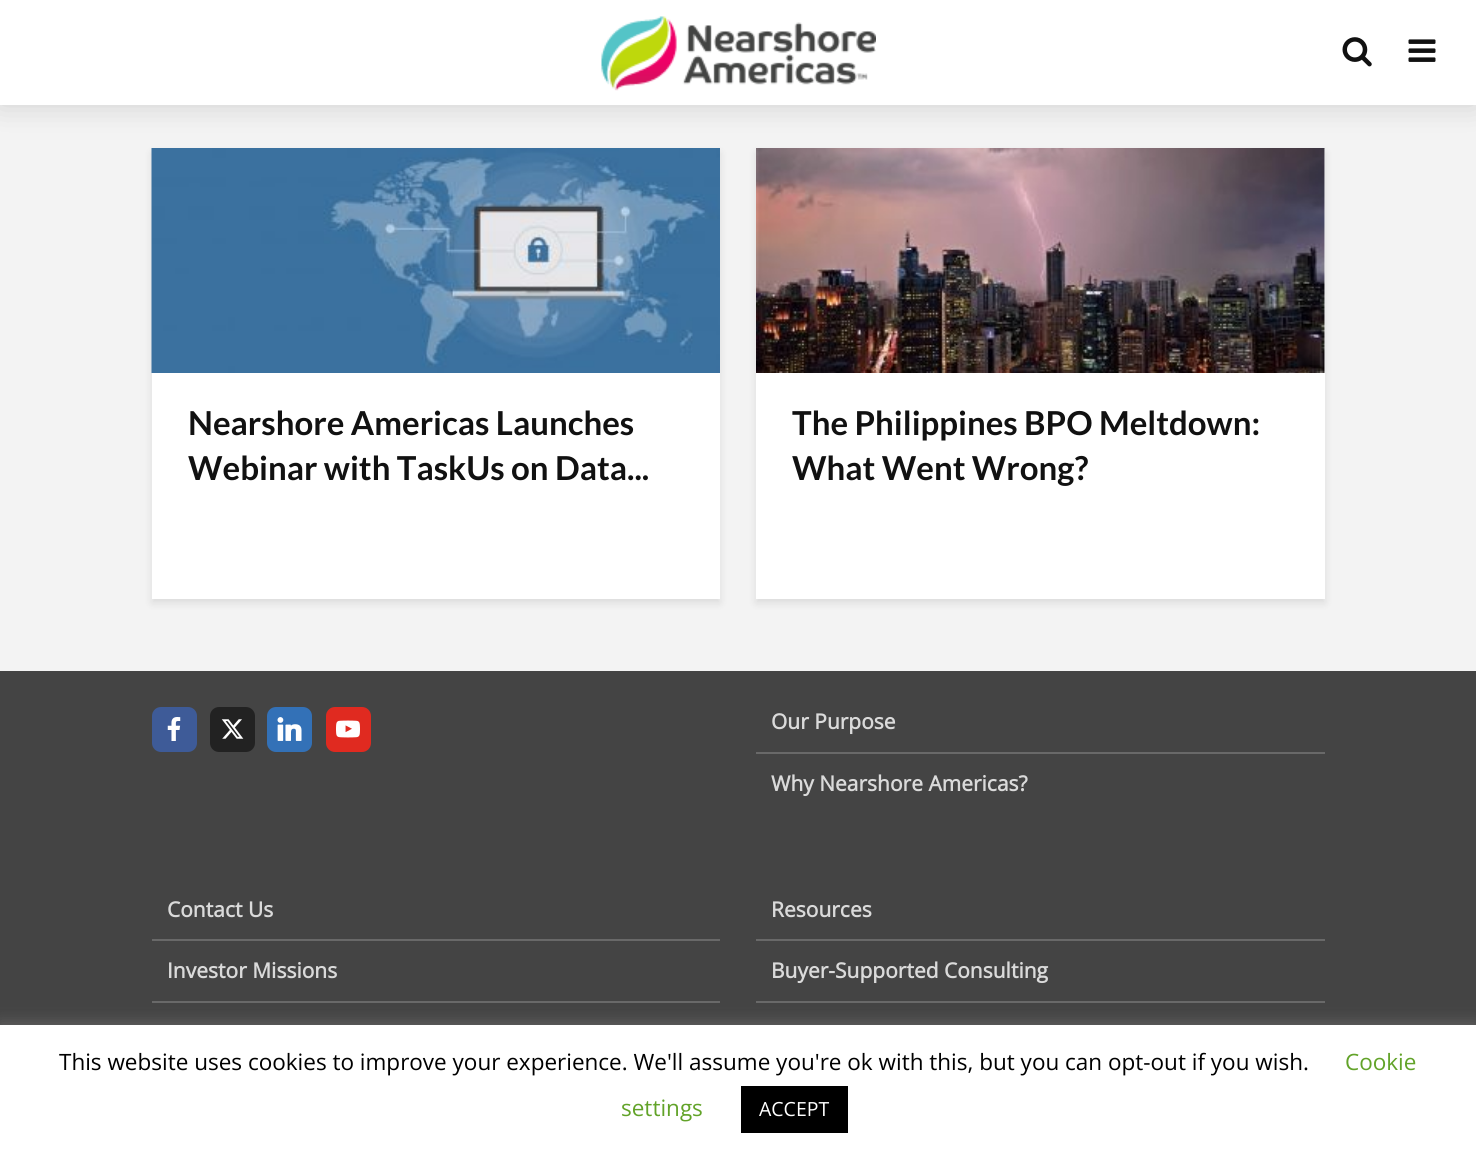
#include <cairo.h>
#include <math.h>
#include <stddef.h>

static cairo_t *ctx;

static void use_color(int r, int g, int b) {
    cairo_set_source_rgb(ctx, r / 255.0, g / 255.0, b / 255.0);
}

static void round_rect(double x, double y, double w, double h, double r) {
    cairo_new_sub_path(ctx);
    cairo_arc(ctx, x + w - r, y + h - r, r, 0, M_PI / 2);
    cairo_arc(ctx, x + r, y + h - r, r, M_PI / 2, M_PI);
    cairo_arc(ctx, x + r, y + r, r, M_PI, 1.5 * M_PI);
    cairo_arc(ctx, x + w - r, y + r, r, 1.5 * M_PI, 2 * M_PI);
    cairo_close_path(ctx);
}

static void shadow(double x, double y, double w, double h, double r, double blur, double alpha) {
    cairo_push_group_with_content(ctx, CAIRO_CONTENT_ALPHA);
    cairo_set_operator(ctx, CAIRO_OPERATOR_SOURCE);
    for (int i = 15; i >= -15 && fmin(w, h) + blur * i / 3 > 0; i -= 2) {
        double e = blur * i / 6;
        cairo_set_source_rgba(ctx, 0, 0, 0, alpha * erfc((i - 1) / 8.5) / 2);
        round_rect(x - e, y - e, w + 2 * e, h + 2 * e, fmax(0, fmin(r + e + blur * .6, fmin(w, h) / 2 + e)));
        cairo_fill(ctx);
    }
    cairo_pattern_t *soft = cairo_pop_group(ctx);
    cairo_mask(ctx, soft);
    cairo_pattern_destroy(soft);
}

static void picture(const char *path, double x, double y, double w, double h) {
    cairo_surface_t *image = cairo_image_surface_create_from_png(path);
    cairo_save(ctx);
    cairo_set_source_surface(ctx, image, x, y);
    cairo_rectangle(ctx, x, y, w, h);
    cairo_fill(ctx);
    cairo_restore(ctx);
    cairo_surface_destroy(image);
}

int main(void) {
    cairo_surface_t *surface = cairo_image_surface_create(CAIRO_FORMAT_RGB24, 1476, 1157);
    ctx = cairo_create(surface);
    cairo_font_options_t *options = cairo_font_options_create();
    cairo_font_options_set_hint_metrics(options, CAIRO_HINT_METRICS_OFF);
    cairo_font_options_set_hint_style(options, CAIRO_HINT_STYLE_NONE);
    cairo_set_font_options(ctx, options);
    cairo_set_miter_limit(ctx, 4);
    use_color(243, 243, 243);
    cairo_paint(ctx);
    use_color(0, 1, 1);
    shadow(152, 153, 568, 450, 0, 4, 0.1);
    picture("img4.png", 151, 148, 569, 225);
    shadow(756, 153, 569, 450, 0, 4, 0.1);
    use_color(255, 255, 255);
    cairo_rectangle(ctx, 756, 149, 569, 450);
    cairo_fill(ctx);
    picture("img5.png", 756, 148, 569, 225);
    use_color(0, 0, 0);
    shadow(0, 0, 1476, 105, 0, 15, 0.15);
    use_color(255, 255, 255);
    cairo_rectangle(ctx, 0, 0, 1476, 105);
    cairo_fill(ctx);
    picture("img1.png", 601, 16, 275, 75);
    picture("img2.png", 1342, 37, 30, 30);
    picture("img3.png", 1408, 39, 28, 23);
    cairo_rectangle(ctx, 152, 373, 568, 226);
    cairo_fill(ctx);
    cairo_select_font_face(ctx, "Lato", CAIRO_FONT_SLANT_NORMAL, CAIRO_FONT_WEIGHT_BOLD);
    cairo_set_font_size(ctx, 33);
    use_color(17, 17, 17);
    cairo_move_to(ctx, 188, 435);
    cairo_show_text(ctx, "Nearshore Americas Launches");
    cairo_move_to(ctx, 188, 480);
    cairo_show_text(ctx, "Webinar with TaskUs on Data...");
    cairo_move_to(ctx, 792, 435);
    cairo_show_text(ctx, "The Philippines BPO Meltdown:");
    cairo_move_to(ctx, 792, 480);
    cairo_show_text(ctx, "What Went Wrong?");
    use_color(68, 68, 68);
    cairo_rectangle(ctx, 0, 671, 1476, 354);
    cairo_fill(ctx);
    use_color(62, 91, 152);
    round_rect(152, 707, 45, 45, 9);
    cairo_fill(ctx);
    picture("img6.png", 167, 717, 14, 24);
    use_color(34, 34, 34);
    round_rect(210, 707, 45, 45, 9);
    cairo_fill(ctx);
    picture("img7.png", 221, 719, 23, 20);
    use_color(51, 113, 183);
    round_rect(267, 707, 45, 45, 9);
    cairo_fill(ctx);
    picture("img8.png", 277, 717, 25, 24);
    use_color(224, 42, 32);
    round_rect(326, 707, 45, 45, 9);
    cairo_fill(ctx);
    picture("img9.png", 336, 720, 24, 18);
    use_color(105, 105, 105);
    cairo_rectangle(ctx, 756, 752, 569, 2);
    cairo_fill(ctx);
    cairo_select_font_face(ctx, "Open Sans", CAIRO_FONT_SLANT_NORMAL, CAIRO_FONT_WEIGHT_BOLD);
    cairo_set_font_size(ctx, 21);
    use_color(218, 218, 218);
    cairo_move_to(ctx, 771, 729);
    cairo_show_text(ctx, "Our Purpose");
    cairo_move_to(ctx, 771, 791);
    cairo_show_text(ctx, "Why Nearshore Americas?");
    use_color(105, 105, 105);
    cairo_rectangle(ctx, 152, 939, 568, 2);
    cairo_fill(ctx);
    use_color(218, 218, 218);
    cairo_move_to(ctx, 167, 917);
    cairo_show_text(ctx, "Contact Us");
    use_color(105, 105, 105);
    cairo_rectangle(ctx, 152, 1001, 568, 2);
    cairo_fill(ctx);
    use_color(218, 218, 218);
    cairo_move_to(ctx, 167, 978);
    cairo_show_text(ctx, "Investor Missions");
    use_color(105, 105, 105);
    cairo_rectangle(ctx, 756, 939, 569, 2);
    cairo_fill(ctx);
    use_color(218, 218, 218);
    cairo_move_to(ctx, 771, 917);
    cairo_show_text(ctx, "Resources");
    use_color(105, 105, 105);
    cairo_rectangle(ctx, 756, 1001, 569, 2);
    cairo_fill(ctx);
    use_color(218, 218, 218);
    cairo_move_to(ctx, 771, 978);
    cairo_show_text(ctx, "Buyer-Supported Consulting");
    use_color(172, 171, 171);
    shadow(0, 1023, 1476, 134, 0, 7.5, 0.3);
    use_color(255, 255, 255);
    cairo_rectangle(ctx, 0, 1025, 1476, 132);
    cairo_fill(ctx);
    cairo_select_font_face(ctx, "Open Sans", CAIRO_FONT_SLANT_NORMAL, CAIRO_FONT_WEIGHT_NORMAL);
    cairo_set_font_size(ctx, 22.5);
    use_color(0, 0, 0);
    cairo_move_to(ctx, 59, 1070);
    cairo_show_text(ctx, "This website uses cookies to improve your experience. We'll assume you're ok with this, but you can opt-out if you wish.");
    use_color(98, 163, 41);
    cairo_move_to(ctx, 1345, 1070);
    cairo_show_text(ctx, "Cookie");
    cairo_move_to(ctx, 621, 1116);
    cairo_show_text(ctx, "settings");
    use_color(0, 0, 0);
    cairo_rectangle(ctx, 741, 1086, 107, 47);
    cairo_fill(ctx);
    cairo_set_font_size(ctx, 19.5);
    use_color(255, 255, 255);
    cairo_move_to(ctx, 759, 1116);
    cairo_show_text(ctx, "ACCEPT");
    cairo_surface_write_to_png(surface, "result.png");
    cairo_font_options_destroy(options);
    cairo_destroy(ctx);
    cairo_surface_destroy(surface);
    return 0;
}
